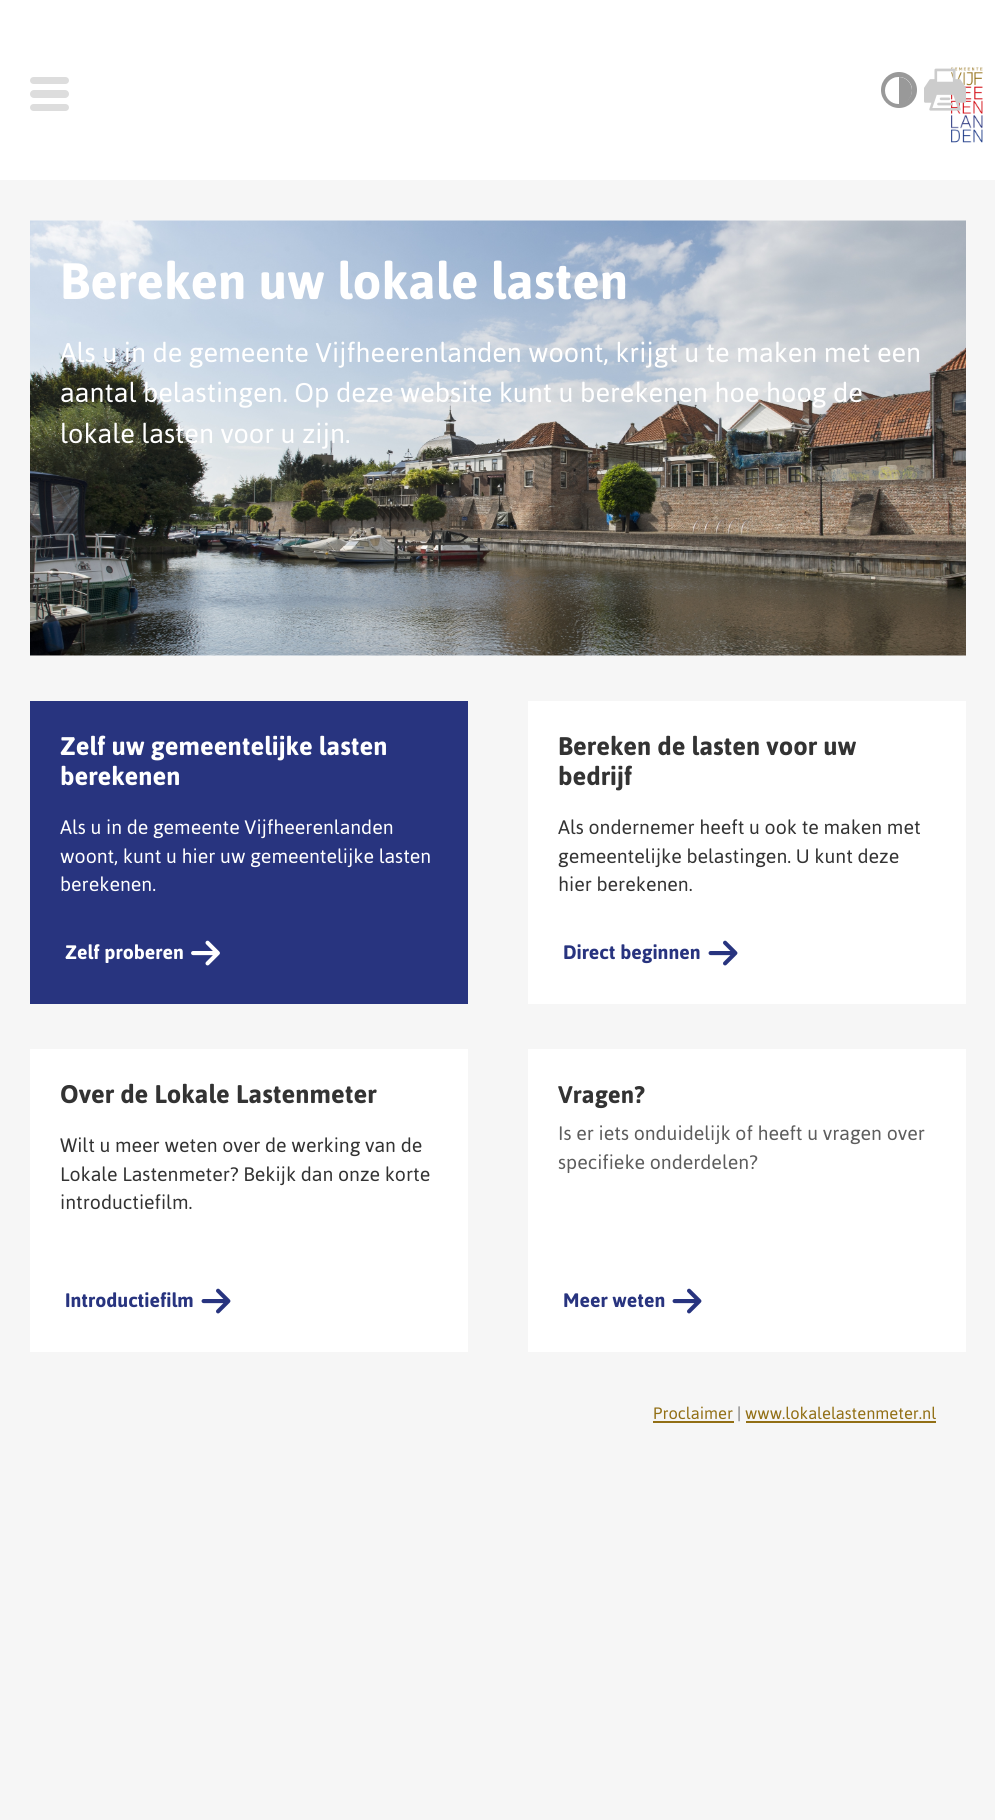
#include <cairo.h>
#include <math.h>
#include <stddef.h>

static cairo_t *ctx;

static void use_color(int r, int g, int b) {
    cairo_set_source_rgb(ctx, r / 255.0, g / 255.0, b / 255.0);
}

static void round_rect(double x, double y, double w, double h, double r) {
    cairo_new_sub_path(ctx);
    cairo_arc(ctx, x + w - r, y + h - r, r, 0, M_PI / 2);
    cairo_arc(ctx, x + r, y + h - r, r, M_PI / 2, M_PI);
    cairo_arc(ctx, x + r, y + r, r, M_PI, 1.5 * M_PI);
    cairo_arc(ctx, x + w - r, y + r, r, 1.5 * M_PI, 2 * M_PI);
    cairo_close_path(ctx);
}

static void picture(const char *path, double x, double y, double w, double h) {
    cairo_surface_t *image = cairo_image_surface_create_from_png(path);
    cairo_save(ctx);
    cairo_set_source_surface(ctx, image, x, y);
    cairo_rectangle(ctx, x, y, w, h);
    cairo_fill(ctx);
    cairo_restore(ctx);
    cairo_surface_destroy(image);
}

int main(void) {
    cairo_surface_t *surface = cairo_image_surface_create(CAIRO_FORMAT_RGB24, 995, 1820);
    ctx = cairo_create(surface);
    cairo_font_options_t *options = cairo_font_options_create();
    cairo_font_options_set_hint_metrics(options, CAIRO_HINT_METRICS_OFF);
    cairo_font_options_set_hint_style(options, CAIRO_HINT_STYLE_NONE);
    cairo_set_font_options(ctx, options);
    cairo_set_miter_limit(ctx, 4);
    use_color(246, 246, 246);
    cairo_paint(ctx);
    use_color(255, 255, 255);
    cairo_rectangle(ctx, 0, 0, 995, 180);
    cairo_fill(ctx);
    use_color(221, 221, 221);
    round_rect(30, 90, 39, 8, 4);
    cairo_fill(ctx);
    round_rect(30, 77, 39, 7, 3.5);
    cairo_fill(ctx);
    round_rect(30, 104, 39, 7, 3.5);
    cairo_fill(ctx);
    cairo_arc(ctx, 899, 90, 15.5, 0, 2 * M_PI);
    use_color(153, 153, 153);
    cairo_set_line_width(ctx, 5);
    cairo_stroke(ctx);
    cairo_arc(ctx, 898.5, 90.5, 13.5, 0, 2 * M_PI);
    cairo_fill(ctx);
    use_color(255, 255, 255);
    cairo_new_path(ctx);
    cairo_move_to(ctx, 898.5, 77);
    cairo_line_to(ctx, 899, 77);
    cairo_line_to(ctx, 899, 104);
    cairo_line_to(ctx, 898.5, 104);
    cairo_curve_to(ctx, 891, 104, 885, 98, 885, 90.5);
    cairo_curve_to(ctx, 885, 83, 891, 77, 898.5, 77);
    cairo_close_path(ctx);
    cairo_fill(ctx);
    picture("img2.png", 951, 67, 32, 76);
    picture("img1.png", 924, 68, 42, 43);
    cairo_rectangle(ctx, 30, 655, 936, 1);
    cairo_fill(ctx);
    picture("img3.png", 30, 220, 936, 436);
    cairo_select_font_face(ctx, "Asap", CAIRO_FONT_SLANT_NORMAL, CAIRO_FONT_WEIGHT_BOLD);
    cairo_set_font_size(ctx, 51);
    cairo_move_to(ctx, 60, 299);
    cairo_show_text(ctx, "Bereken uw lokale lasten");
    cairo_select_font_face(ctx, "Asap", CAIRO_FONT_SLANT_NORMAL, CAIRO_FONT_WEIGHT_NORMAL);
    cairo_set_font_size(ctx, 27);
    cairo_move_to(ctx, 60, 362);
    cairo_show_text(ctx, "Als u in de gemeente Vijfheerenlanden woont, krijgt u te maken met een");
    cairo_move_to(ctx, 60, 402);
    cairo_show_text(ctx, "aantal belastingen. Op deze website kunt u berekenen hoe hoog de");
    cairo_move_to(ctx, 60, 443);
    cairo_show_text(ctx, "lokale lasten voor u zijn.");
    use_color(40, 52, 127);
    cairo_rectangle(ctx, 30, 701, 438, 303);
    cairo_fill(ctx);
    cairo_select_font_face(ctx, "Asap", CAIRO_FONT_SLANT_NORMAL, CAIRO_FONT_WEIGHT_BOLD);
    cairo_set_font_size(ctx, 25.5);
    use_color(255, 255, 255);
    cairo_move_to(ctx, 60, 755);
    cairo_show_text(ctx, "Zelf uw gemeentelijke lasten");
    cairo_move_to(ctx, 60, 785);
    cairo_show_text(ctx, "berekenen");
    cairo_select_font_face(ctx, "Asap", CAIRO_FONT_SLANT_NORMAL, CAIRO_FONT_WEIGHT_NORMAL);
    cairo_set_font_size(ctx, 19.5);
    cairo_move_to(ctx, 60, 834);
    cairo_show_text(ctx, "Als u in de gemeente Vijfheerenlanden");
    cairo_move_to(ctx, 60, 863);
    cairo_show_text(ctx, "woont, kunt u hier uw gemeentelijke lasten");
    cairo_move_to(ctx, 60, 891);
    cairo_show_text(ctx, "berekenen.");
    cairo_select_font_face(ctx, "Asap", CAIRO_FONT_SLANT_NORMAL, CAIRO_FONT_WEIGHT_BOLD);
    cairo_move_to(ctx, 65, 959);
    cairo_show_text(ctx, "Zelf proberen");
    picture("img4.png", 191, 940, 29, 26);
    cairo_rectangle(ctx, 528, 701, 438, 303);
    cairo_fill(ctx);
    cairo_set_font_size(ctx, 25.5);
    use_color(51, 51, 51);
    cairo_move_to(ctx, 558, 755);
    cairo_show_text(ctx, "Bereken de lasten voor uw");
    cairo_move_to(ctx, 558, 785);
    cairo_show_text(ctx, "bedrijf");
    cairo_select_font_face(ctx, "Asap", CAIRO_FONT_SLANT_NORMAL, CAIRO_FONT_WEIGHT_NORMAL);
    cairo_set_font_size(ctx, 19.5);
    cairo_move_to(ctx, 558, 834);
    cairo_show_text(ctx, "Als ondernemer heeft u ook te maken met");
    cairo_move_to(ctx, 558, 863);
    cairo_show_text(ctx, "gemeentelijke belastingen. U kunt deze");
    cairo_move_to(ctx, 558, 891);
    cairo_show_text(ctx, "hier berekenen.");
    cairo_select_font_face(ctx, "Asap", CAIRO_FONT_SLANT_NORMAL, CAIRO_FONT_WEIGHT_BOLD);
    use_color(40, 52, 127);
    cairo_move_to(ctx, 563, 959);
    cairo_show_text(ctx, "Direct beginnen");
    picture("img5.png", 708, 940, 30, 26);
    use_color(255, 255, 255);
    cairo_rectangle(ctx, 30, 1049, 438, 303);
    cairo_fill(ctx);
    cairo_set_font_size(ctx, 25.5);
    use_color(51, 51, 51);
    cairo_move_to(ctx, 60, 1103);
    cairo_show_text(ctx, "Over de Lokale Lastenmeter");
    cairo_select_font_face(ctx, "Asap", CAIRO_FONT_SLANT_NORMAL, CAIRO_FONT_WEIGHT_NORMAL);
    cairo_set_font_size(ctx, 19.5);
    cairo_move_to(ctx, 60, 1152);
    cairo_show_text(ctx, "Wilt u meer weten over de werking van de");
    cairo_move_to(ctx, 60, 1181);
    cairo_show_text(ctx, "Lokale Lastenmeter? Bekijk dan onze korte");
    cairo_move_to(ctx, 60, 1209);
    cairo_show_text(ctx, "introductiefilm.");
    cairo_select_font_face(ctx, "Asap", CAIRO_FONT_SLANT_NORMAL, CAIRO_FONT_WEIGHT_BOLD);
    use_color(40, 52, 127);
    cairo_move_to(ctx, 65, 1307);
    cairo_show_text(ctx, "Introductiefilm");
    picture("img5.png", 201, 1288, 30, 26);
    use_color(255, 255, 255);
    cairo_rectangle(ctx, 528, 1049, 438, 303);
    cairo_fill(ctx);
    cairo_set_font_size(ctx, 24);
    use_color(51, 51, 51);
    cairo_move_to(ctx, 558, 1103);
    cairo_show_text(ctx, "Vragen?");
    cairo_select_font_face(ctx, "Asap", CAIRO_FONT_SLANT_NORMAL, CAIRO_FONT_WEIGHT_NORMAL);
    cairo_set_font_size(ctx, 19.5);
    use_color(93, 93, 93);
    cairo_move_to(ctx, 558, 1140);
    cairo_show_text(ctx, "Is er iets onduidelijk of heeft u vragen over");
    cairo_move_to(ctx, 558, 1169);
    cairo_show_text(ctx, "specifieke onderdelen?");
    cairo_select_font_face(ctx, "Asap", CAIRO_FONT_SLANT_NORMAL, CAIRO_FONT_WEIGHT_BOLD);
    use_color(40, 52, 127);
    cairo_move_to(ctx, 563, 1307);
    cairo_show_text(ctx, "Meer weten");
    picture("img5.png", 672, 1288, 30, 26);
    cairo_select_font_face(ctx, "Asap", CAIRO_FONT_SLANT_NORMAL, CAIRO_FONT_WEIGHT_NORMAL);
    cairo_set_font_size(ctx, 16.5);
    use_color(146, 111, 21);
    cairo_move_to(ctx, 653, 1419);
    cairo_show_text(ctx, "Proclaimer");
    cairo_rectangle(ctx, 653, 1421, 81, 2);
    cairo_fill(ctx);
    use_color(93, 93, 93);
    cairo_move_to(ctx, 737, 1419);
    cairo_show_text(ctx, "|");
    use_color(146, 111, 21);
    cairo_move_to(ctx, 745, 1419);
    cairo_show_text(ctx, "www.lokalelastenmeter.nl");
    cairo_rectangle(ctx, 746, 1421, 190, 2);
    cairo_fill(ctx);
    cairo_surface_write_to_png(surface, "result.png");
    cairo_font_options_destroy(options);
    cairo_destroy(ctx);
    cairo_surface_destroy(surface);
    return 0;
}
